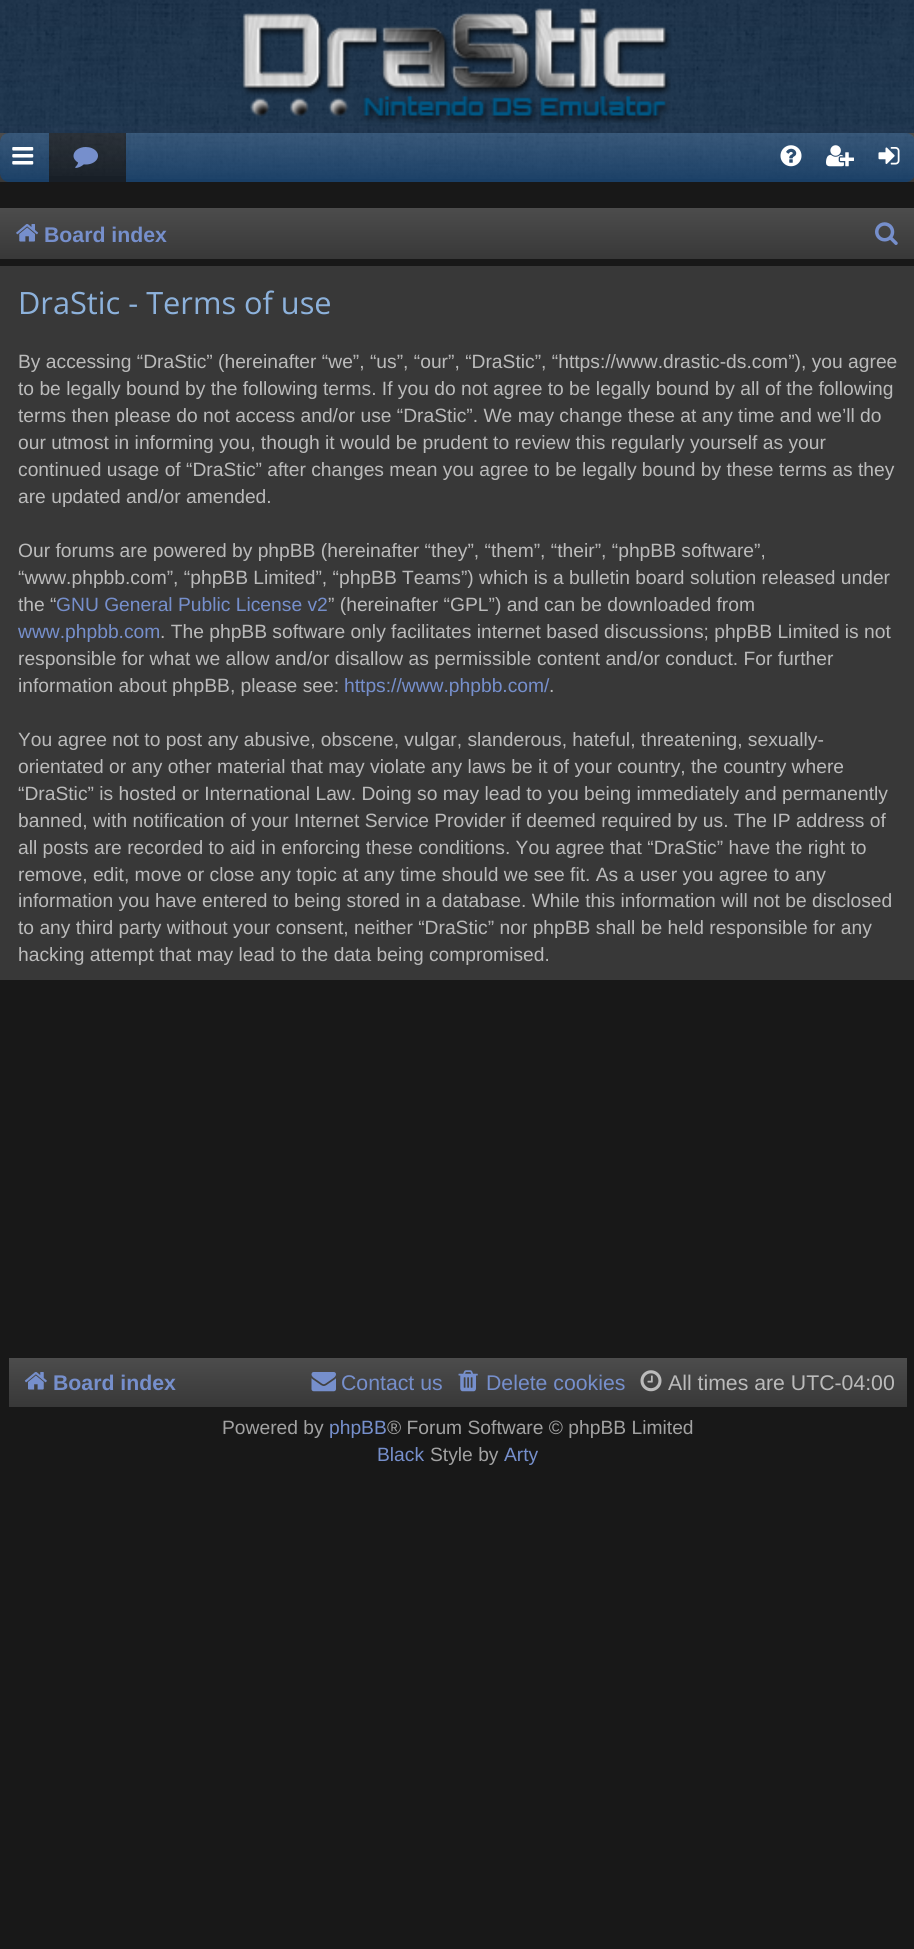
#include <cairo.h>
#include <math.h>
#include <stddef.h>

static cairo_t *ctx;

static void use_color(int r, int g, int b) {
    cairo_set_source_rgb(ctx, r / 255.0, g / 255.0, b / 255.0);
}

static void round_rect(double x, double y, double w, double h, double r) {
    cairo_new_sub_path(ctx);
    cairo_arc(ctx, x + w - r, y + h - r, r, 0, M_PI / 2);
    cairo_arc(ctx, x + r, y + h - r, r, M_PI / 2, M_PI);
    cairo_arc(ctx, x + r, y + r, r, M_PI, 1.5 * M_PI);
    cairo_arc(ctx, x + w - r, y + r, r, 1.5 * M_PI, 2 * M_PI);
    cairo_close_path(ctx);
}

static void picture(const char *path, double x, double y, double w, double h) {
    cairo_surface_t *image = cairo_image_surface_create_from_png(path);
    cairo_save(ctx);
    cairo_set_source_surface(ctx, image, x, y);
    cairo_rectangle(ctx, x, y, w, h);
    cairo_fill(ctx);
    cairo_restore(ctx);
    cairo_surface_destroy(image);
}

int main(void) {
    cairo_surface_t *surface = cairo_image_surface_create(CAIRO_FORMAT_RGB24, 914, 1949);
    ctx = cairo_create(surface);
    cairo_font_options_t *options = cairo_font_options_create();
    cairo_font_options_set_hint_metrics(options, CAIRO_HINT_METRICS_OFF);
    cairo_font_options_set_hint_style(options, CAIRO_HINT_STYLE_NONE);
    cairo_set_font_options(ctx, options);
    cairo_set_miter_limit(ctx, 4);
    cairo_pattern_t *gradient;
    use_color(24, 24, 24);
    cairo_paint(ctx);
    use_color(26, 58, 92);
    cairo_rectangle(ctx, 0, 0, 914, 133);
    cairo_fill(ctx);
    picture("img1.png", 0, 0, 914, 133);
    picture("img2.png", 241, 8, 430, 115);
    gradient = cairo_pattern_create_linear(458, 133, 458, 182);
    cairo_pattern_add_color_stop_rgba(gradient, 0, 0.298, 0.298, 0.298, 1);
    cairo_pattern_add_color_stop_rgba(gradient, 1, 0.22, 0.22, 0.22, 1);
    cairo_set_source(ctx, gradient);
    cairo_pattern_destroy(gradient);
    cairo_rectangle(ctx, 0, 133, 914, 49);
    cairo_fill(ctx);
    use_color(26, 63, 102);
    round_rect(0, 133, 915, 49, 9);
    cairo_fill(ctx);
    picture("img3.png", 0, 133, 914, 46);
    picture("img4.png", 12, 147, 22, 18);
    use_color(24, 31, 39);
    cairo_rectangle(ctx, 49, 133, 77, 49);
    cairo_fill(ctx);
    picture("img5.png", 49, 133, 77, 43);
    picture("img6.png", 73, 147, 25, 21);
    picture("img7.png", 780, 145, 22, 22);
    picture("img8.png", 826, 145, 28, 22);
    picture("img9.png", 878, 147, 22, 18);
    gradient = cairo_pattern_create_linear(458, 208, 458, 259);
    cairo_pattern_add_color_stop_rgba(gradient, 0, 0.298, 0.298, 0.298, 1);
    cairo_pattern_add_color_stop_rgba(gradient, 1, 0.22, 0.22, 0.22, 1);
    cairo_set_source(ctx, gradient);
    cairo_pattern_destroy(gradient);
    cairo_rectangle(ctx, 0, 208, 914, 51);
    cairo_fill(ctx);
    picture("img10.png", 16, 224, 23, 18);
    cairo_select_font_face(ctx, "Liberation Sans", CAIRO_FONT_SLANT_NORMAL, CAIRO_FONT_WEIGHT_BOLD);
    cairo_set_font_size(ctx, 21.25);
    use_color(118, 143, 204);
    cairo_move_to(ctx, 44, 242);
    cairo_show_text(ctx, "Board index");
    picture("img11.png", 875, 222, 23, 23);
    use_color(56, 56, 56);
    cairo_rectangle(ctx, 0, 266, 914, 714);
    cairo_fill(ctx);
    cairo_select_font_face(ctx, "Open Sans", CAIRO_FONT_SLANT_NORMAL, CAIRO_FONT_WEIGHT_NORMAL);
    cairo_set_font_size(ctx, 30.75);
    use_color(141, 178, 220);
    cairo_move_to(ctx, 18, 314);
    cairo_show_text(ctx, "DraStic - Terms of use");
    cairo_select_font_face(ctx, "Liberation Sans", CAIRO_FONT_SLANT_NORMAL, CAIRO_FONT_WEIGHT_NORMAL);
    cairo_set_font_size(ctx, 19.25);
    use_color(187, 187, 187);
    cairo_move_to(ctx, 18, 368);
    cairo_show_text(ctx, "By accessing “DraStic” (hereinafter “we”, “us”, “our”, “DraStic”, “https://www.drastic-ds.com”), you agree");
    cairo_move_to(ctx, 18, 395);
    cairo_show_text(ctx, "to be legally bound by the following terms. If you do not agree to be legally bound by all of the following");
    cairo_move_to(ctx, 18, 422);
    cairo_show_text(ctx, "terms then please do not access and/or use “DraStic”. We may change these at any time and we’ll do");
    cairo_move_to(ctx, 18, 449);
    cairo_show_text(ctx, "our utmost in informing you, though it would be prudent to review this regularly yourself as your");
    cairo_move_to(ctx, 18, 476);
    cairo_show_text(ctx, "continued usage of “DraStic” after changes mean you agree to be legally bound by these terms as they");
    cairo_move_to(ctx, 18, 503);
    cairo_show_text(ctx, "are updated and/or amended.");
    cairo_move_to(ctx, 18, 557);
    cairo_show_text(ctx, "Our forums are powered by phpBB (hereinafter “they”, “them”, “their”, “phpBB software”,");
    cairo_move_to(ctx, 18, 584);
    cairo_show_text(ctx, "“www.phpbb.com”, “phpBB Limited”, “phpBB Teams”) which is a bulletin board solution released under");
    cairo_move_to(ctx, 18, 611);
    cairo_show_text(ctx, "the “");
    use_color(118, 143, 204);
    cairo_move_to(ctx, 56, 611);
    cairo_show_text(ctx, "GNU General Public License v2");
    use_color(187, 187, 187);
    cairo_move_to(ctx, 328, 611);
    cairo_show_text(ctx, "” (hereinafter “GPL”) and can be downloaded from");
    cairo_save(ctx);
    cairo_rectangle(ctx, 18, 275, 880, 696);
    cairo_clip(ctx);
    use_color(118, 143, 204);
    cairo_move_to(ctx, 18, 638);
    cairo_show_text(ctx, "www.phpbb.com");
    cairo_restore(ctx);
    cairo_move_to(ctx, 160, 638);
    cairo_show_text(ctx, ". The phpBB software only facilitates internet based discussions; phpBB Limited is not");
    cairo_move_to(ctx, 18, 665);
    cairo_show_text(ctx, "responsible for what we allow and/or disallow as permissible content and/or conduct. For further");
    cairo_move_to(ctx, 18, 692);
    cairo_show_text(ctx, "information about phpBB, please see:");
    use_color(118, 143, 204);
    cairo_move_to(ctx, 344, 692);
    cairo_show_text(ctx, "https://www.phpbb.com/");
    use_color(187, 187, 187);
    cairo_move_to(ctx, 549, 692);
    cairo_show_text(ctx, ".");
    cairo_move_to(ctx, 18, 746);
    cairo_show_text(ctx, "You agree not to post any abusive, obscene, vulgar, slanderous, hateful, threatening, sexually-");
    cairo_move_to(ctx, 18, 773);
    cairo_show_text(ctx, "orientated or any other material that may violate any laws be it of your country, the country where");
    cairo_move_to(ctx, 18, 800);
    cairo_show_text(ctx, "“DraStic” is hosted or International Law. Doing so may lead to you being immediately and permanently");
    cairo_move_to(ctx, 18, 827);
    cairo_show_text(ctx, "banned, with notification of your Internet Service Provider if deemed required by us. The IP address of");
    cairo_move_to(ctx, 18, 854);
    cairo_show_text(ctx, "all posts are recorded to aid in enforcing these conditions. You agree that “DraStic” have the right to");
    cairo_move_to(ctx, 18, 881);
    cairo_show_text(ctx, "remove, edit, move or close any topic at any time should we see fit. As a user you agree to any");
    cairo_move_to(ctx, 18, 907);
    cairo_show_text(ctx, "information you have entered to being stored in a database. While this information will not be disclosed");
    cairo_move_to(ctx, 18, 934);
    cairo_show_text(ctx, "to any third party without your consent, neither “DraStic” nor phpBB shall be held responsible for any");
    cairo_move_to(ctx, 18, 961);
    cairo_show_text(ctx, "hacking attempt that may lead to the data being compromised.");
    gradient = cairo_pattern_create_linear(458, 1358, 458, 1407);
    cairo_pattern_add_color_stop_rgba(gradient, 0, 0.298, 0.298, 0.298, 1);
    cairo_pattern_add_color_stop_rgba(gradient, 1, 0.22, 0.22, 0.22, 1);
    cairo_set_source(ctx, gradient);
    cairo_pattern_destroy(gradient);
    cairo_rectangle(ctx, 9, 1358, 898, 49);
    cairo_fill(ctx);
    picture("img12.png", 24, 1372, 23, 18);
    cairo_select_font_face(ctx, "Liberation Sans", CAIRO_FONT_SLANT_NORMAL, CAIRO_FONT_WEIGHT_BOLD);
    cairo_set_font_size(ctx, 21.25);
    use_color(118, 143, 204);
    cairo_move_to(ctx, 53, 1390);
    cairo_show_text(ctx, "Board index");
    picture("img13.png", 311, 1372, 25, 20);
    cairo_select_font_face(ctx, "Liberation Sans", CAIRO_FONT_SLANT_NORMAL, CAIRO_FONT_WEIGHT_NORMAL);
    cairo_move_to(ctx, 341, 1390);
    cairo_show_text(ctx, "Contact us");
    picture("img14.png", 458, 1370, 20, 22);
    cairo_move_to(ctx, 486, 1390);
    cairo_show_text(ctx, "Delete cookies");
    picture("img15.png", 640, 1370, 22, 22);
    use_color(187, 187, 187);
    cairo_move_to(ctx, 668, 1390);
    cairo_show_text(ctx, "All times are UTC-04:00");
    cairo_set_font_size(ctx, 19.25);
    use_color(162, 162, 162);
    cairo_move_to(ctx, 222, 1434);
    cairo_show_text(ctx, "Powered by");
    use_color(118, 143, 204);
    cairo_move_to(ctx, 329, 1434);
    cairo_show_text(ctx, "phpBB");
    use_color(162, 162, 162);
    cairo_move_to(ctx, 387, 1434);
    cairo_show_text(ctx, "® Forum Software © phpBB Limited");
    use_color(118, 143, 204);
    cairo_move_to(ctx, 377, 1461);
    cairo_show_text(ctx, "Black");
    use_color(162, 162, 162);
    cairo_move_to(ctx, 430, 1461);
    cairo_show_text(ctx, "Style by");
    use_color(118, 143, 204);
    cairo_move_to(ctx, 504, 1461);
    cairo_show_text(ctx, "Arty");
    cairo_surface_write_to_png(surface, "result.png");
    cairo_font_options_destroy(options);
    cairo_destroy(ctx);
    cairo_surface_destroy(surface);
    return 0;
}
